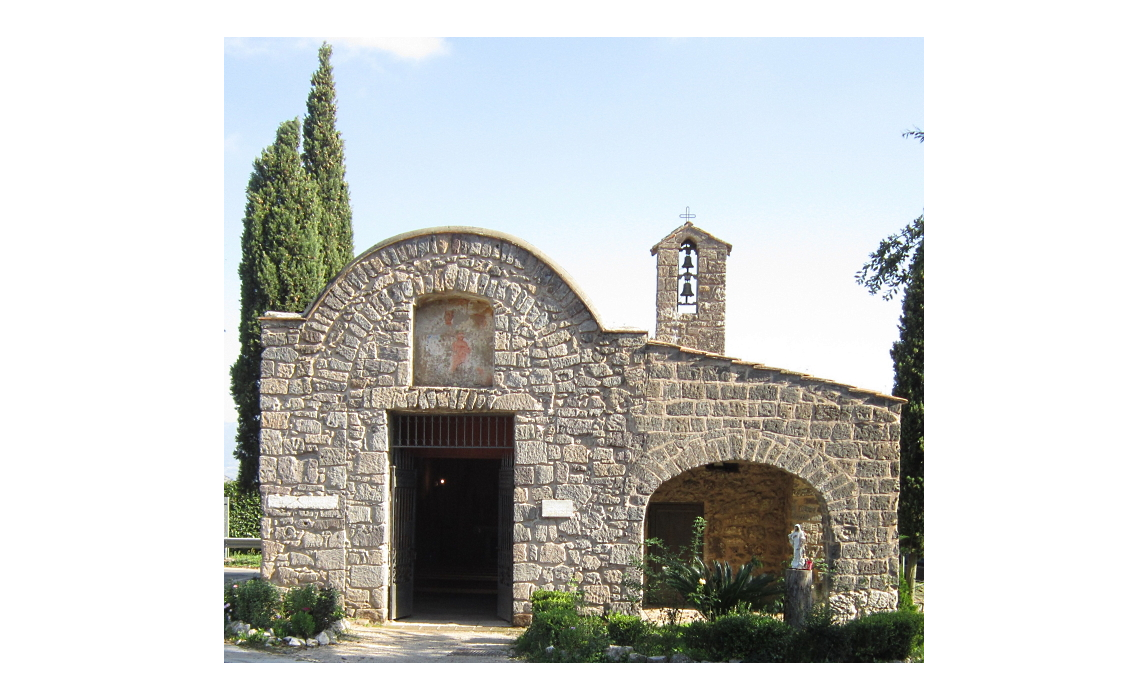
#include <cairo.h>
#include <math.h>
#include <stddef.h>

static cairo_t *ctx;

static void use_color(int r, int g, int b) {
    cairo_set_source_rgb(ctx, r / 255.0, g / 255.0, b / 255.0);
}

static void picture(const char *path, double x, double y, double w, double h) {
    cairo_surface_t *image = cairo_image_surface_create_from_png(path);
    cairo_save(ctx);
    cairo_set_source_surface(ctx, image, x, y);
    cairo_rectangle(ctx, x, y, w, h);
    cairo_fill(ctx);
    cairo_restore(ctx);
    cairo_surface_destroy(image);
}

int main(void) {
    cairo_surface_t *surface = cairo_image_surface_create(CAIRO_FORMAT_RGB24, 1147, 700);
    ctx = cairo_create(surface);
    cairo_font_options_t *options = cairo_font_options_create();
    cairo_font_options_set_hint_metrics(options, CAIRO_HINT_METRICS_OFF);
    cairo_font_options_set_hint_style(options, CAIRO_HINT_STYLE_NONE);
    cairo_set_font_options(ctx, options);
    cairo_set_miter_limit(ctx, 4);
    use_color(255, 255, 255);
    cairo_paint(ctx);
    picture("img1.png", 224, 37, 700, 626);
    cairo_surface_write_to_png(surface, "result.png");
    cairo_font_options_destroy(options);
    cairo_destroy(ctx);
    cairo_surface_destroy(surface);
    return 0;
}
